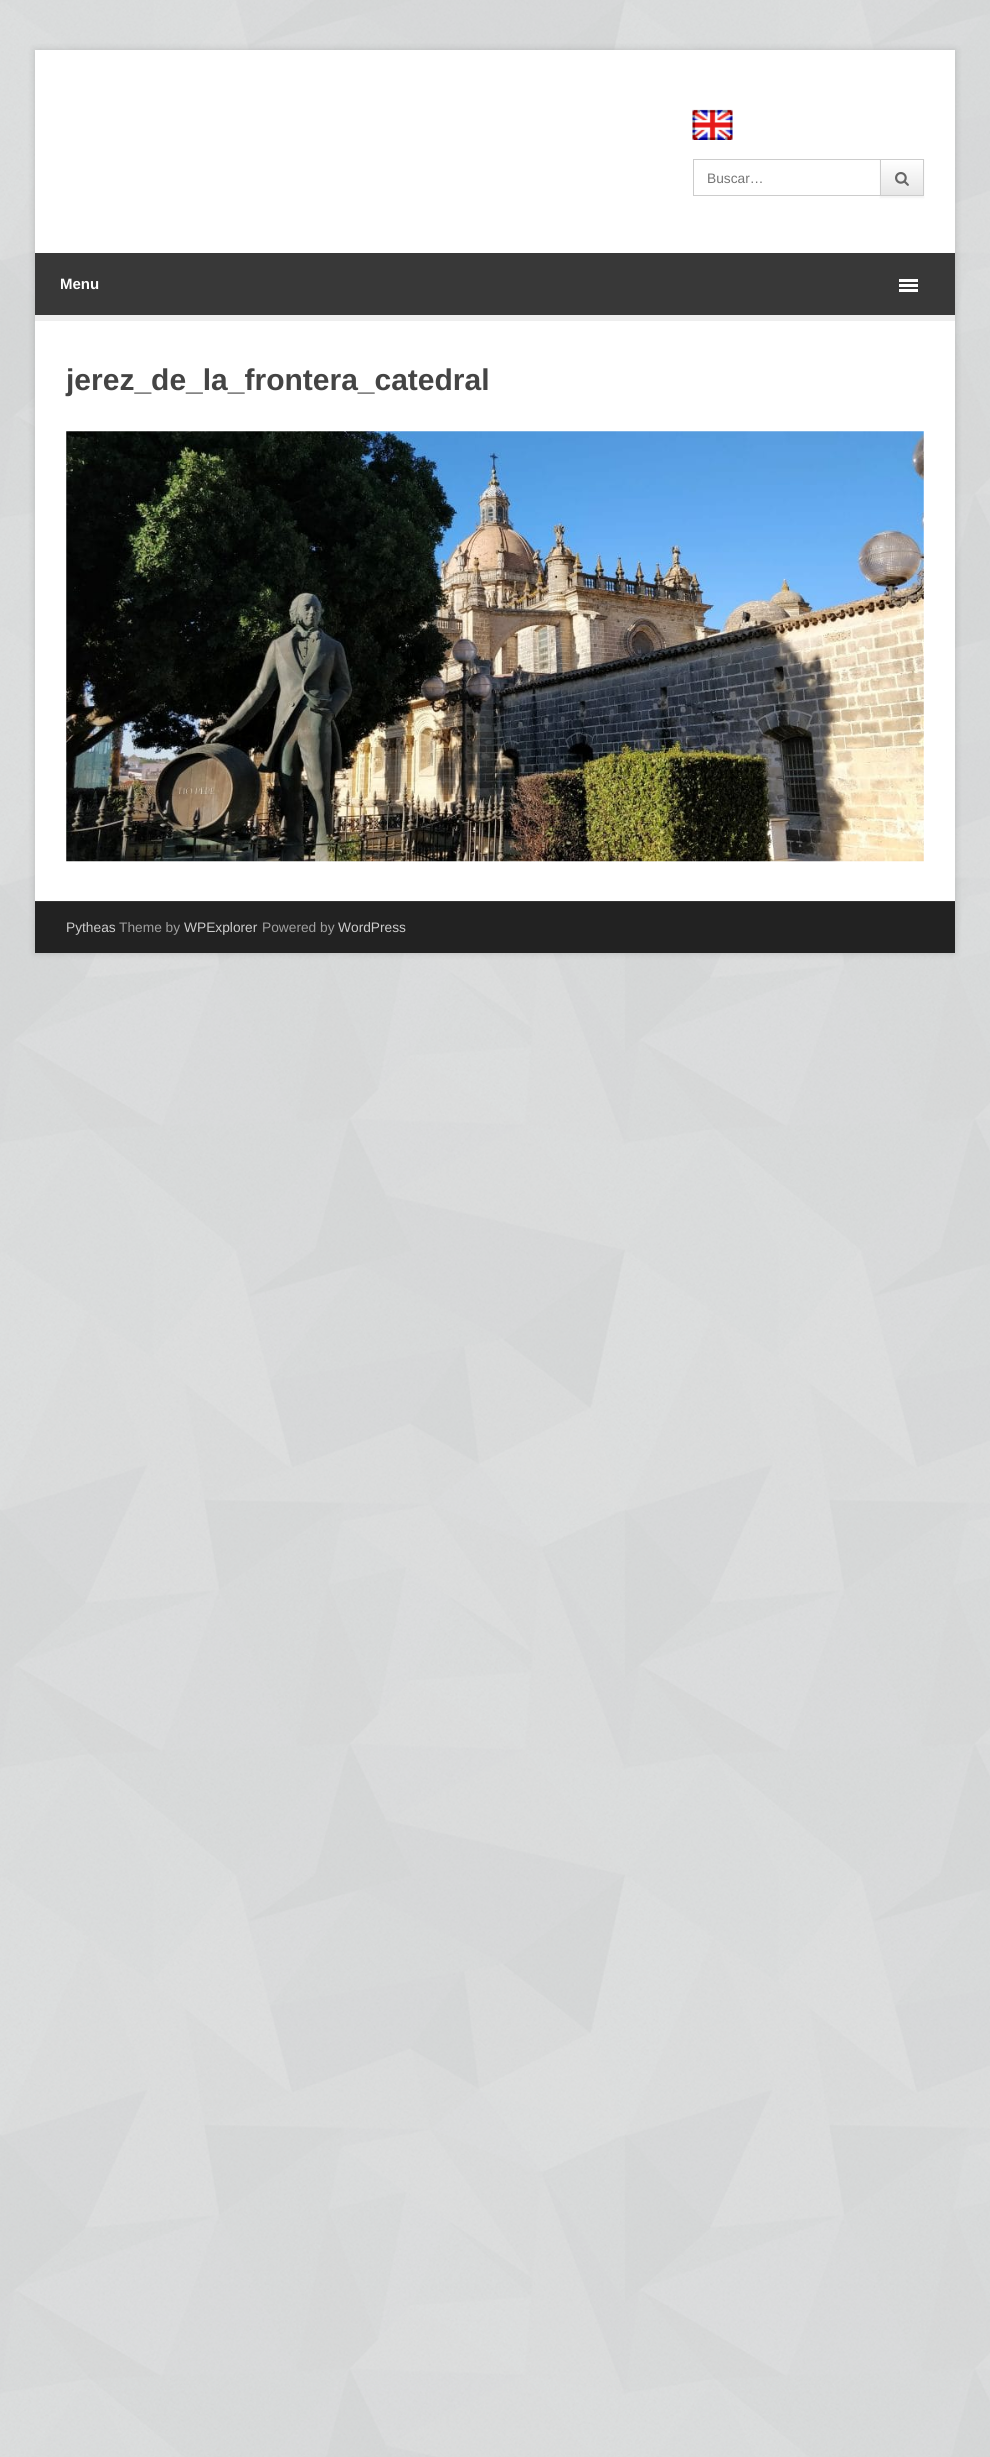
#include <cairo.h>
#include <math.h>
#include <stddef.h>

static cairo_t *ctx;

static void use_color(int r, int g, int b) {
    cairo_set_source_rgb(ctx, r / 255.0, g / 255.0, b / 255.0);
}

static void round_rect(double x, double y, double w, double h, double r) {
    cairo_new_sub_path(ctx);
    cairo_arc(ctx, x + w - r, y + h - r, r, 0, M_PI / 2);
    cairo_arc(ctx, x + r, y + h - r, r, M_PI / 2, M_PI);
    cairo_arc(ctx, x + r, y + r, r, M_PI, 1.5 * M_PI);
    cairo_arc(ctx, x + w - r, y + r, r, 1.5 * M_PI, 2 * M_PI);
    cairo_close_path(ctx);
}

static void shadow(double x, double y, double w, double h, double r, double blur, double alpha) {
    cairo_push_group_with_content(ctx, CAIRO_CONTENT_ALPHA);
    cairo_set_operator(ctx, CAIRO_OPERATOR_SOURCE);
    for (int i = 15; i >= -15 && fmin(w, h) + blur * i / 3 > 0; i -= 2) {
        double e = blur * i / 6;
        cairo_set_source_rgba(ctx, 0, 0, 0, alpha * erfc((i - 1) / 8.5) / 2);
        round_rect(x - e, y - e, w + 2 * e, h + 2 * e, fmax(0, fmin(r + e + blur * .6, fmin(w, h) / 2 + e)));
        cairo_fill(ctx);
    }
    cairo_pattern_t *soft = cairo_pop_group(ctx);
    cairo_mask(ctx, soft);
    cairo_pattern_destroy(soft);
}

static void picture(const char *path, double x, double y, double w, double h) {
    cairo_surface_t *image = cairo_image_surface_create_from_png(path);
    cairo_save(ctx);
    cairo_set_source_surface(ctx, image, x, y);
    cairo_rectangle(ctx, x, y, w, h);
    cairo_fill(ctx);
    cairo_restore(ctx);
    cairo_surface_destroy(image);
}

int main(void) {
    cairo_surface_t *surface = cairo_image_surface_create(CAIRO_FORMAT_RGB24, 990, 2457);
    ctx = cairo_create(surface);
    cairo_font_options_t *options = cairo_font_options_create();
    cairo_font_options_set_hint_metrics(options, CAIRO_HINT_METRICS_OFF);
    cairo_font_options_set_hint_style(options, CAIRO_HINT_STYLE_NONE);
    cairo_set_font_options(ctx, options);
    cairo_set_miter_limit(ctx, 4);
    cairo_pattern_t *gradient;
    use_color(255, 255, 255);
    cairo_paint(ctx);
    picture("img1.png", 0, 0, 990, 2457);
    use_color(0, 0, 0);
    shadow(35, 50, 920, 903, 0, 4, 0.15);
    use_color(255, 255, 255);
    cairo_rectangle(ctx, 35, 50, 920, 851);
    cairo_fill(ctx);
    picture("img2.png", 692, 109, 41, 31);
    use_color(204, 204, 204);
    cairo_rectangle(ctx, 693, 159, 187, 1);
    cairo_fill(ctx);
    cairo_rectangle(ctx, 693, 195, 187, 1);
    cairo_fill(ctx);
    cairo_rectangle(ctx, 693, 159, 1, 37);
    cairo_fill(ctx);
    cairo_select_font_face(ctx, "Liberation Sans", CAIRO_FONT_SLANT_NORMAL, CAIRO_FONT_WEIGHT_NORMAL);
    cairo_set_font_size(ctx, 13.75);
    use_color(117, 117, 117);
    cairo_move_to(ctx, 707, 183);
    cairo_show_text(ctx, "Buscar…");
    use_color(0, 0, 0);
    shadow(880, 160, 44, 38, 0, 1, 0.05);
    gradient = cairo_pattern_create_linear(902, 160, 902, 195);
    cairo_pattern_add_color_stop_rgba(gradient, 0, 1, 1, 1, 1);
    cairo_pattern_add_color_stop_rgba(gradient, 1, 0.902, 0.902, 0.902, 1);
    cairo_set_source(ctx, gradient);
    cairo_pattern_destroy(gradient);
    cairo_rectangle(ctx, 881, 160, 42, 35);
    cairo_fill(ctx);
    cairo_rectangle(ctx, 880.5, 159.5, 43, 36);
    use_color(204, 204, 204);
    cairo_set_line_width(ctx, 1);
    cairo_stroke(ctx);
    picture("img3.png", 895, 172, 14, 14);
    use_color(56, 56, 56);
    cairo_rectangle(ctx, 35, 253, 920, 62);
    cairo_fill(ctx);
    use_color(238, 238, 238);
    cairo_rectangle(ctx, 35, 315, 920, 6);
    cairo_fill(ctx);
    cairo_select_font_face(ctx, "Liberation Sans", CAIRO_FONT_SLANT_NORMAL, CAIRO_FONT_WEIGHT_BOLD);
    cairo_set_font_size(ctx, 15);
    use_color(255, 255, 255);
    cairo_move_to(ctx, 60, 289);
    cairo_show_text(ctx, "Menu");
    cairo_rectangle(ctx, 899, 279, 19, 3);
    cairo_fill(ctx);
    cairo_rectangle(ctx, 899, 284, 19, 3);
    cairo_fill(ctx);
    cairo_rectangle(ctx, 899, 289, 19, 3);
    cairo_fill(ctx);
    cairo_set_font_size(ctx, 30);
    use_color(68, 68, 68);
    cairo_move_to(ctx, 66, 390);
    cairo_show_text(ctx, "jerez_de_la_frontera_catedral");
    picture("img4.png", 66, 431, 858, 431);
    use_color(34, 34, 34);
    cairo_rectangle(ctx, 35, 902, 920, 51);
    cairo_fill(ctx);
    use_color(51, 51, 51);
    cairo_rectangle(ctx, 35, 901, 920, 1);
    cairo_fill(ctx);
    cairo_select_font_face(ctx, "Liberation Sans", CAIRO_FONT_SLANT_NORMAL, CAIRO_FONT_WEIGHT_NORMAL);
    cairo_set_font_size(ctx, 13.75);
    use_color(204, 204, 204);
    cairo_move_to(ctx, 66, 932);
    cairo_show_text(ctx, "Pytheas");
    use_color(159, 159, 159);
    cairo_move_to(ctx, 119, 932);
    cairo_show_text(ctx, "Theme by");
    use_color(204, 204, 204);
    cairo_move_to(ctx, 184, 932);
    cairo_show_text(ctx, "WPExplorer");
    use_color(159, 159, 159);
    cairo_move_to(ctx, 262, 932);
    cairo_show_text(ctx, "Powered by");
    use_color(204, 204, 204);
    cairo_move_to(ctx, 338, 932);
    cairo_show_text(ctx, "WordPress");
    cairo_surface_write_to_png(surface, "result.png");
    cairo_font_options_destroy(options);
    cairo_destroy(ctx);
    cairo_surface_destroy(surface);
    return 0;
}
